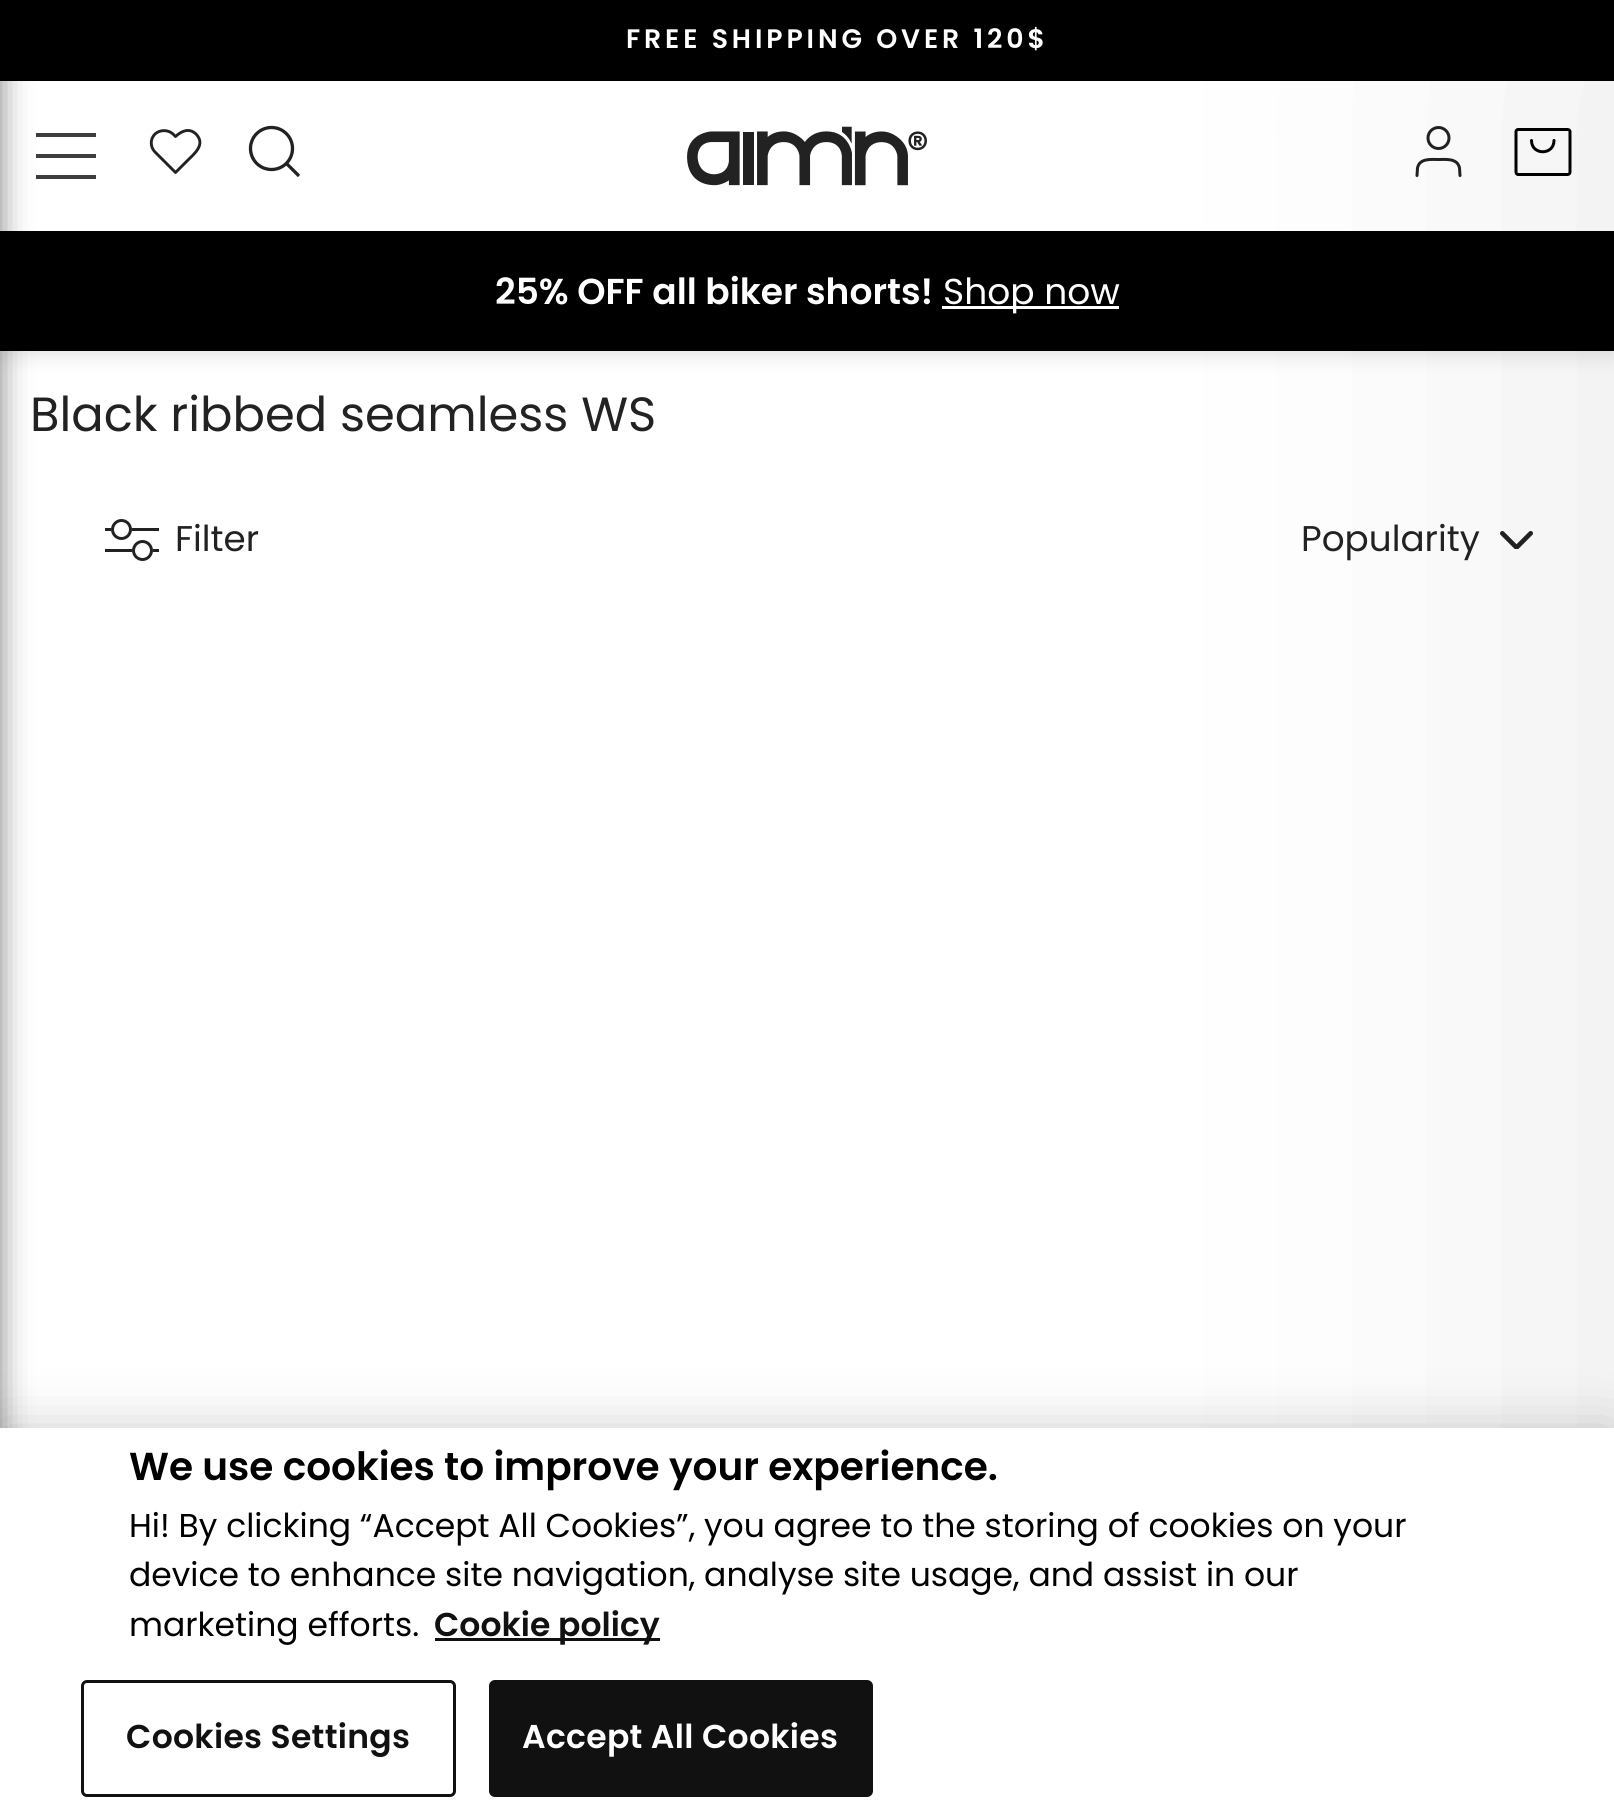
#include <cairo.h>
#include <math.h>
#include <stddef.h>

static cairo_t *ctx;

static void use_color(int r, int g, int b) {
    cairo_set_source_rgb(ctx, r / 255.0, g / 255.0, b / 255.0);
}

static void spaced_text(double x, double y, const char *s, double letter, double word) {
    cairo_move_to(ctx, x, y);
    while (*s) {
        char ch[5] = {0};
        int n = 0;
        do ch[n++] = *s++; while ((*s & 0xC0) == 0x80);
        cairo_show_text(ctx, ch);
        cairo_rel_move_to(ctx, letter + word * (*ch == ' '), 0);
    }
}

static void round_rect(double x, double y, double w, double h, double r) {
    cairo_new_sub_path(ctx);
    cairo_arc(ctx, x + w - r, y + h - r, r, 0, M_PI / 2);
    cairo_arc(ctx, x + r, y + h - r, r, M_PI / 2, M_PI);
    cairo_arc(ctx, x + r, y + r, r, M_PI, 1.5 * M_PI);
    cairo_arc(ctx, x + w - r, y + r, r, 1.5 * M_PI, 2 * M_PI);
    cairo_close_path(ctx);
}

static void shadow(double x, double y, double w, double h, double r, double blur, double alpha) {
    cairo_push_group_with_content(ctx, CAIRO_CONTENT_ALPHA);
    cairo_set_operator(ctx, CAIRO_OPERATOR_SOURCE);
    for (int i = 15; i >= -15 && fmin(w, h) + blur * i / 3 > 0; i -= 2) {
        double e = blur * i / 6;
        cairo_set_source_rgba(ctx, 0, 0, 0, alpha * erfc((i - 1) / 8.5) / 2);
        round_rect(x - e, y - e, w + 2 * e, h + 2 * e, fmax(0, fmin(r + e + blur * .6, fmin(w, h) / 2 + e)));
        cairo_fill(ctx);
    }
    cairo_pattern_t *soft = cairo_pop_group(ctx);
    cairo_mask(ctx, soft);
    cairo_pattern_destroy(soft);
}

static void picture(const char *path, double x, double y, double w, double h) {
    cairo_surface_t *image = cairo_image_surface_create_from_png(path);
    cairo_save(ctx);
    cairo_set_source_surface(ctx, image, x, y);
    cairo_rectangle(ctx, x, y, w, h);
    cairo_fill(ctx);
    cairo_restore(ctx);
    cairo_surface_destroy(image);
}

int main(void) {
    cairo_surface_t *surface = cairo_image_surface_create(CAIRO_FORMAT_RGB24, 1614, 1812);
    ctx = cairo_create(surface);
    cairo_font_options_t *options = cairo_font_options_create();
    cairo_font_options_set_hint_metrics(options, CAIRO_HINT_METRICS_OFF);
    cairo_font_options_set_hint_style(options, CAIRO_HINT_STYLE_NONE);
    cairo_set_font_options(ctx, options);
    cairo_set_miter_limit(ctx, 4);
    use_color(255, 255, 255);
    cairo_paint(ctx);
    use_color(0, 0, 0);
    cairo_rectangle(ctx, 0, 0, 1614, 81);
    cairo_fill(ctx);
    cairo_select_font_face(ctx, "Poppins SemiBold", CAIRO_FONT_SLANT_NORMAL, CAIRO_FONT_WEIGHT_NORMAL);
    cairo_set_font_size(ctx, 26.75);
    use_color(255, 255, 255);
    spaced_text(626, 48, "FREE SHIPPING OVER 120$", 3.9, 0);
    cairo_save(ctx);
    cairo_set_fill_rule(ctx, CAIRO_FILL_RULE_EVEN_ODD);
    cairo_new_path(ctx);
    cairo_move_to(ctx, 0, 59);
    cairo_line_to(ctx, 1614, 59);
    cairo_line_to(ctx, 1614, 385);
    cairo_line_to(ctx, 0, 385);
    cairo_close_path(ctx);
    cairo_move_to(ctx, 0, 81);
    cairo_line_to(ctx, 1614, 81);
    cairo_line_to(ctx, 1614, 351);
    cairo_line_to(ctx, 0, 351);
    cairo_close_path(ctx);
    cairo_clip(ctx);
    use_color(0, 0, 0);
    shadow(0, 87, 1614, 270, 0, 9, 0.1);
    cairo_restore(ctx);
    use_color(62, 62, 62);
    cairo_rectangle(ctx, 36, 133, 60, 4);
    cairo_fill(ctx);
    cairo_rectangle(ctx, 36, 154, 60, 4);
    cairo_fill(ctx);
    cairo_rectangle(ctx, 36, 175, 60, 4);
    cairo_fill(ctx);
    cairo_new_path(ctx);
    cairo_move_to(ctx, 196, 134);
    cairo_curve_to(ctx, 189, 127.5, 181.5, 131, 175.5, 136.5);
    cairo_line_to(ctx, 173, 134);
    cairo_curve_to(ctx, 168, 129.5, 160, 129.5, 155, 134);
    cairo_curve_to(ctx, 150, 139, 150, 147, 155, 152);
    cairo_line_to(ctx, 175.5, 172.5);
    cairo_line_to(ctx, 187.5, 160.5);
    cairo_curve_to(ctx, 194.5, 153.5, 206, 144.5, 196, 134);
    cairo_close_path(ctx);
    use_color(34, 34, 34);
    cairo_set_line_width(ctx, 2.9);
    cairo_set_line_cap(ctx, CAIRO_LINE_CAP_ROUND);
    cairo_set_line_join(ctx, CAIRO_LINE_JOIN_ROUND);
    cairo_stroke(ctx);
    cairo_arc(ctx, 271.5, 148.5, 21, 0, 2 * M_PI);
    cairo_set_line_width(ctx, 3.3);
    cairo_set_line_cap(ctx, CAIRO_LINE_CAP_BUTT);
    cairo_set_line_join(ctx, CAIRO_LINE_JOIN_MITER);
    cairo_stroke(ctx);
    cairo_new_path(ctx);
    cairo_move_to(ctx, 299, 176);
    cairo_line_to(ctx, 287, 164);
    cairo_set_line_join(ctx, CAIRO_LINE_JOIN_ROUND);
    cairo_stroke(ctx);
    picture("img1.png", 687, 126, 240, 60);
    cairo_arc(ctx, 1438.5, 138, 10.5, 0, 2 * M_PI);
    cairo_set_line_width(ctx, 3);
    cairo_set_line_join(ctx, CAIRO_LINE_JOIN_MITER);
    cairo_stroke(ctx);
    cairo_new_path(ctx);
    cairo_move_to(ctx, 1460, 175.5);
    cairo_line_to(ctx, 1459.5, 168);
    cairo_curve_to(ctx, 1457.5, 158, 1446, 159.5, 1438.5, 159.5);
    cairo_curve_to(ctx, 1431, 159.5, 1419.5, 158, 1417.5, 168);
    cairo_line_to(ctx, 1417, 175.5);
    cairo_set_line_cap(ctx, CAIRO_LINE_CAP_ROUND);
    cairo_set_line_join(ctx, CAIRO_LINE_JOIN_ROUND);
    cairo_stroke(ctx);
    cairo_new_path(ctx);
    cairo_move_to(ctx, 1567.5, 129.5);
    cairo_line_to(ctx, 1518, 129.5);
    cairo_curve_to(ctx, 1517, 129.5, 1516, 130.5, 1516, 131.5);
    cairo_line_to(ctx, 1516, 172);
    cairo_curve_to(ctx, 1516, 173.5, 1517, 174.5, 1518, 174.5);
    cairo_line_to(ctx, 1567.5, 174.5);
    cairo_curve_to(ctx, 1569, 174.5, 1570, 173.5, 1570, 172);
    cairo_line_to(ctx, 1570, 131.5);
    cairo_curve_to(ctx, 1570, 130.5, 1569, 129.5, 1567.5, 129.5);
    cairo_close_path(ctx);
    cairo_move_to(ctx, 1554, 140.5);
    cairo_curve_to(ctx, 1554, 155.5, 1531.5, 155.5, 1531.5, 140.5);
    use_color(0, 0, 0);
    cairo_stroke(ctx);
    cairo_rectangle(ctx, 0, 231, 1614, 120);
    cairo_fill(ctx);
    cairo_set_font_size(ctx, 36);
    use_color(255, 255, 255);
    cairo_move_to(ctx, 495, 304);
    cairo_show_text(ctx, "25% OFF all biker shorts!");
    cairo_rectangle(ctx, 942, 306, 177, 3);
    cairo_fill(ctx);
    cairo_select_font_face(ctx, "Poppins", CAIRO_FONT_SLANT_NORMAL, CAIRO_FONT_WEIGHT_NORMAL);
    cairo_move_to(ctx, 943, 304);
    cairo_show_text(ctx, "Shop now");
    picture("img2.png", 1500, 531, 33, 18);
    use_color(0, 0, 0);
    shadow(1614, 0, 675, 1812, 0, 225, 0.1);
    cairo_set_font_size(ctx, 48);
    use_color(34, 34, 34);
    cairo_move_to(ctx, 30, 431);
    cairo_show_text(ctx, "Black ribbed seamless WS");
    use_color(0, 0, 0);
    shadow(-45, 0, 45, 1812, 0, 15, 0.5);
    use_color(34, 34, 34);
    cairo_rectangle(ctx, 105, 528, 54, 3);
    cairo_fill(ctx);
    cairo_rectangle(ctx, 105, 549, 54, 3);
    cairo_fill(ctx);
    use_color(255, 255, 255);
    cairo_arc(ctx, 121.5, 529.5, 10.5, 0, 2 * M_PI);
    cairo_fill(ctx);
    cairo_arc(ctx, 121.5, 529.5, 9, 0, 2 * M_PI);
    use_color(34, 34, 34);
    cairo_set_line_cap(ctx, CAIRO_LINE_CAP_BUTT);
    cairo_set_line_join(ctx, CAIRO_LINE_JOIN_MITER);
    cairo_stroke(ctx);
    use_color(255, 255, 255);
    cairo_arc(ctx, 142.5, 550.5, 10.5, 0, 2 * M_PI);
    cairo_fill(ctx);
    cairo_arc(ctx, 142.5, 550.5, 9, 0, 2 * M_PI);
    use_color(34, 34, 34);
    cairo_stroke(ctx);
    cairo_set_font_size(ctx, 35.75);
    cairo_move_to(ctx, 175, 551);
    cairo_show_text(ctx, "Filter");
    cairo_move_to(ctx, 1301, 551);
    cairo_show_text(ctx, "Popularity");
    use_color(0, 0, 0);
    shadow(0, 1428, 1614, 384, 0, 27, 0.2);
    use_color(255, 255, 255);
    cairo_rectangle(ctx, 0, 1428, 1614, 384);
    cairo_fill(ctx);
    cairo_select_font_face(ctx, "Poppins SemiBold", CAIRO_FONT_SLANT_NORMAL, CAIRO_FONT_WEIGHT_NORMAL);
    cairo_set_font_size(ctx, 39);
    use_color(0, 0, 0);
    cairo_move_to(ctx, 129, 1480);
    cairo_show_text(ctx, "We use cookies to improve your experience.");
    cairo_select_font_face(ctx, "Poppins", CAIRO_FONT_SLANT_NORMAL, CAIRO_FONT_WEIGHT_NORMAL);
    cairo_set_font_size(ctx, 33);
    cairo_move_to(ctx, 129, 1537);
    cairo_show_text(ctx, "Hi! By clicking “Accept All Cookies”, you agree to the storing of cookies on your");
    cairo_move_to(ctx, 129, 1586);
    cairo_show_text(ctx, "device to enhance site navigation, analyse site usage, and assist in our");
    cairo_move_to(ctx, 129, 1636);
    cairo_show_text(ctx, "marketing efforts.");
    use_color(17, 17, 17);
    cairo_rectangle(ctx, 435, 1638, 225, 3);
    cairo_fill(ctx);
    cairo_select_font_face(ctx, "Poppins SemiBold", CAIRO_FONT_SLANT_NORMAL, CAIRO_FONT_WEIGHT_NORMAL);
    cairo_move_to(ctx, 434, 1636);
    cairo_show_text(ctx, "Cookie policy");
    round_rect(82.5, 1681.5, 372, 114, 4.5);
    cairo_stroke(ctx);
    spaced_text(126, 1748, "Cookies Settings", 0.3, 0);
    round_rect(490.5, 1681.5, 381, 114, 4.5);
    cairo_fill_preserve(ctx);
    cairo_stroke(ctx);
    use_color(255, 255, 255);
    spaced_text(522, 1748, "Accept All Cookies", 0.3, 0);
    cairo_surface_write_to_png(surface, "result.png");
    cairo_font_options_destroy(options);
    cairo_destroy(ctx);
    cairo_surface_destroy(surface);
    return 0;
}
